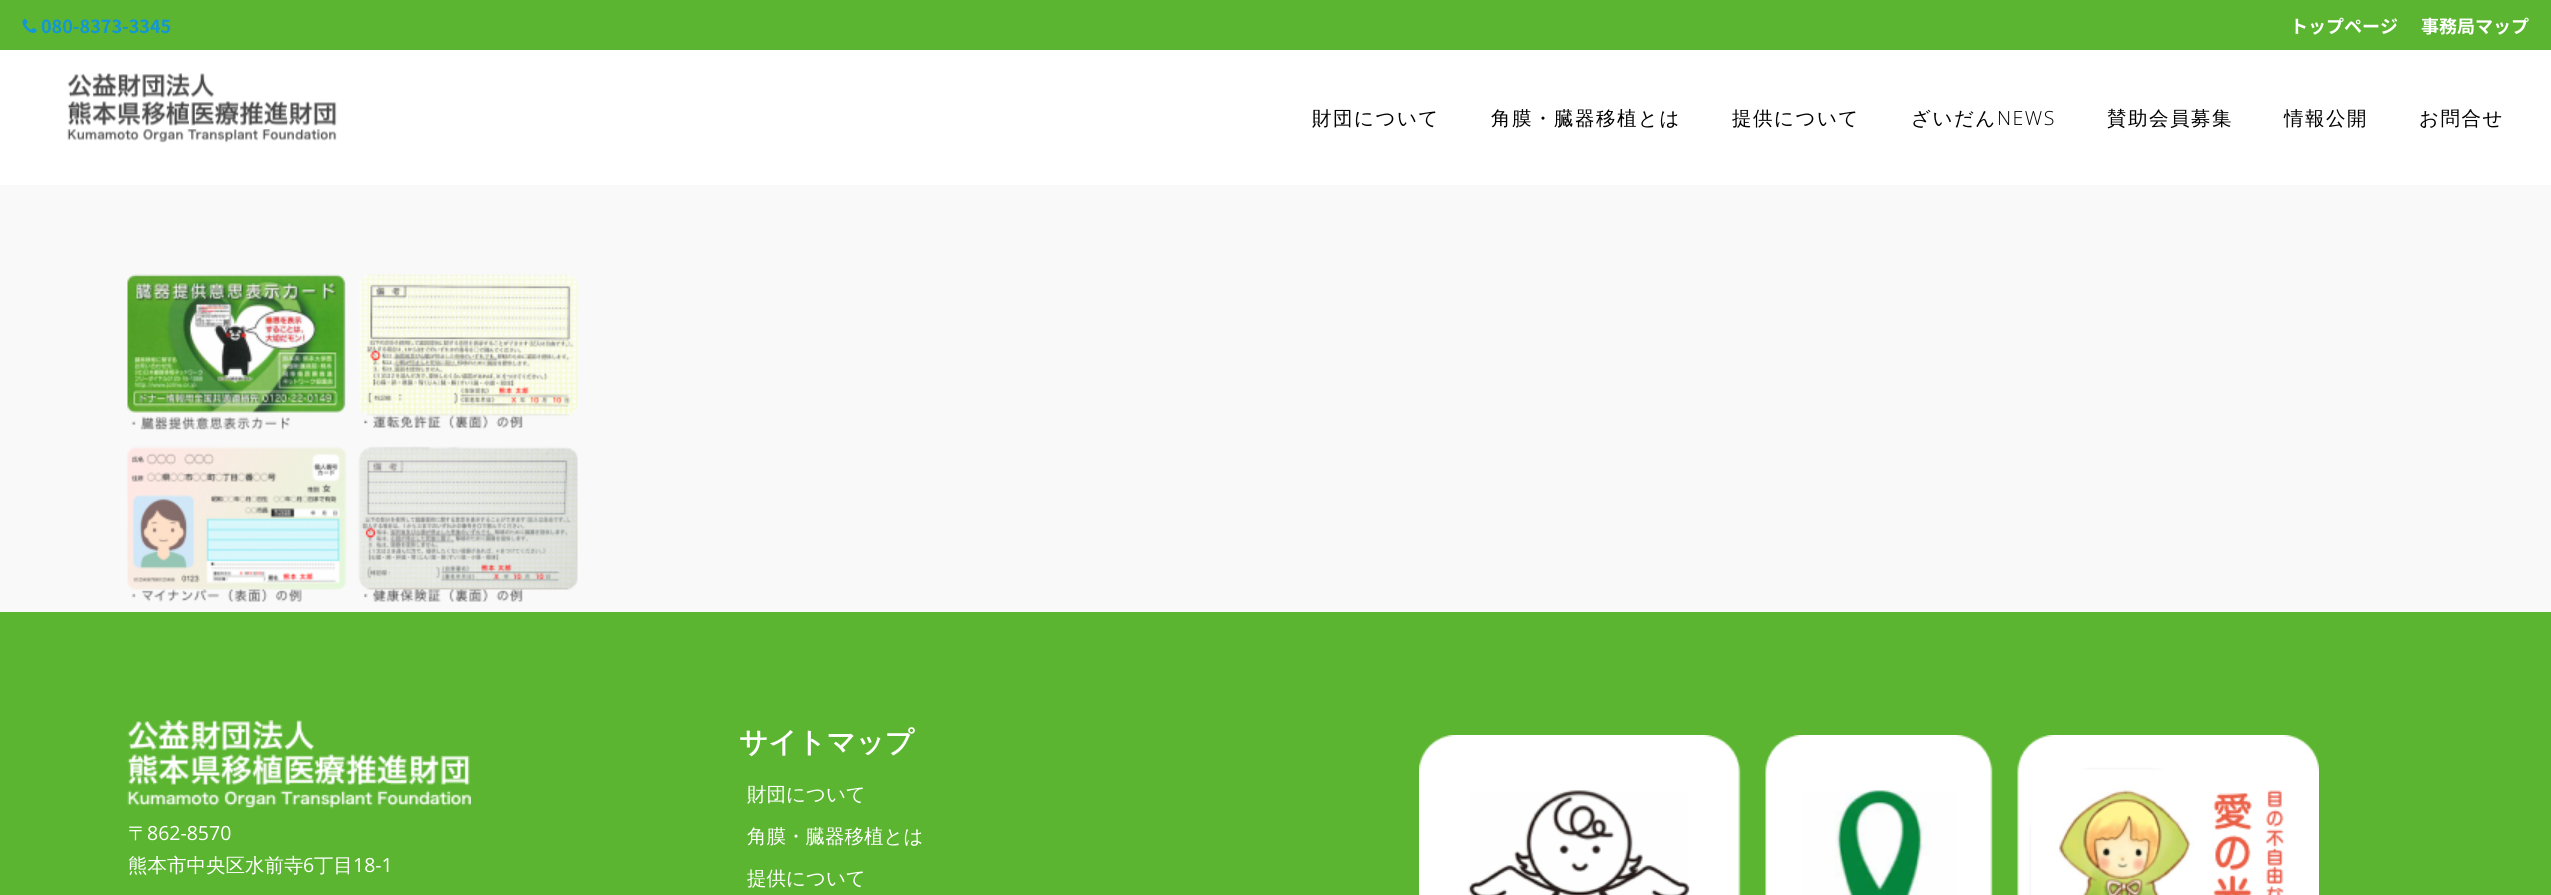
#include <cairo.h>
#include <math.h>
#include <stddef.h>

static cairo_t *ctx;

static void use_color(int r, int g, int b) {
    cairo_set_source_rgb(ctx, r / 255.0, g / 255.0, b / 255.0);
}

static void spaced_text(double x, double y, const char *s, double letter, double word) {
    cairo_move_to(ctx, x, y);
    while (*s) {
        char ch[5] = {0};
        int n = 0;
        do ch[n++] = *s++; while ((*s & 0xC0) == 0x80);
        cairo_show_text(ctx, ch);
        cairo_rel_move_to(ctx, letter + word * (*ch == ' '), 0);
    }
}

static void picture(const char *path, double x, double y, double w, double h) {
    cairo_surface_t *image = cairo_image_surface_create_from_png(path);
    cairo_save(ctx);
    cairo_set_source_surface(ctx, image, x, y);
    cairo_rectangle(ctx, x, y, w, h);
    cairo_fill(ctx);
    cairo_restore(ctx);
    cairo_surface_destroy(image);
}

int main(void) {
    cairo_surface_t *surface = cairo_image_surface_create(CAIRO_FORMAT_RGB24, 2551, 895);
    ctx = cairo_create(surface);
    cairo_font_options_t *options = cairo_font_options_create();
    cairo_font_options_set_hint_metrics(options, CAIRO_HINT_METRICS_OFF);
    cairo_font_options_set_hint_style(options, CAIRO_HINT_STYLE_NONE);
    cairo_set_font_options(ctx, options);
    cairo_set_miter_limit(ctx, 4);
    use_color(249, 249, 249);
    cairo_paint(ctx);
    use_color(91, 181, 49);
    cairo_rectangle(ctx, 0, 0, 2551, 50);
    cairo_fill(ctx);
    picture("img1.png", 22, 18, 15, 15);
    cairo_select_font_face(ctx, "Noto Sans JP", CAIRO_FONT_SLANT_NORMAL, CAIRO_FONT_WEIGHT_BOLD);
    cairo_set_font_size(ctx, 18);
    use_color(18, 150, 214);
    cairo_move_to(ctx, 41, 33);
    cairo_show_text(ctx, "080-8373-3345");
    use_color(255, 255, 255);
    cairo_move_to(ctx, 2290, 33);
    cairo_show_text(ctx, "トップページ");
    cairo_move_to(ctx, 2421, 33);
    cairo_show_text(ctx, "事務局マップ");
    cairo_rectangle(ctx, 0, 50, 2551, 135);
    cairo_fill(ctx);
    picture("img2.png", 67, 73, 270, 70);
    cairo_select_font_face(ctx, "WenQuanYi Zen Hei Medium", CAIRO_FONT_SLANT_NORMAL, CAIRO_FONT_WEIGHT_NORMAL);
    cairo_set_font_size(ctx, 19.5);
    use_color(0, 0, 0);
    spaced_text(1312, 125, "財団について", 1.5, 0);
    spaced_text(1491, 125, "角膜・臓器移植とは", 1.5, 0);
    spaced_text(1732, 125, "提供について", 1.5, 0);
    spaced_text(1911, 125, "ざいだん", 1.5, 0);
    cairo_select_font_face(ctx, "Open Sans Light", CAIRO_FONT_SLANT_NORMAL, CAIRO_FONT_WEIGHT_NORMAL);
    spaced_text(1997, 125, "NEWS", 1.5, 0);
    cairo_select_font_face(ctx, "WenQuanYi Zen Hei Medium", CAIRO_FONT_SLANT_NORMAL, CAIRO_FONT_WEIGHT_NORMAL);
    spaced_text(2107, 125, "賛助会員募集", 1.5, 0);
    spaced_text(2284, 125, "情報公開", 1.5, 0);
    spaced_text(2419, 125, "お問合せ", 1.5, 0);
    picture("img3.png", 127, 274, 451, 328);
    use_color(91, 181, 49);
    cairo_rectangle(ctx, 0, 612, 2551, 283);
    cairo_fill(ctx);
    picture("img4.png", 127, 720, 344, 89);
    use_color(255, 255, 255);
    cairo_move_to(ctx, 128, 840);
    cairo_show_text(ctx, "〒");
    cairo_select_font_face(ctx, "Open Sans", CAIRO_FONT_SLANT_NORMAL, CAIRO_FONT_WEIGHT_NORMAL);
    cairo_move_to(ctx, 147, 840);
    cairo_show_text(ctx, "862-8570");
    cairo_select_font_face(ctx, "WenQuanYi Zen Hei Medium", CAIRO_FONT_SLANT_NORMAL, CAIRO_FONT_WEIGHT_NORMAL);
    cairo_move_to(ctx, 128, 872);
    cairo_show_text(ctx, "熊本市中央区水前寺");
    cairo_select_font_face(ctx, "Open Sans", CAIRO_FONT_SLANT_NORMAL, CAIRO_FONT_WEIGHT_NORMAL);
    cairo_move_to(ctx, 303, 872);
    cairo_show_text(ctx, "6");
    cairo_select_font_face(ctx, "WenQuanYi Zen Hei Medium", CAIRO_FONT_SLANT_NORMAL, CAIRO_FONT_WEIGHT_NORMAL);
    cairo_move_to(ctx, 314, 872);
    cairo_show_text(ctx, "丁目");
    cairo_select_font_face(ctx, "Open Sans", CAIRO_FONT_SLANT_NORMAL, CAIRO_FONT_WEIGHT_NORMAL);
    cairo_move_to(ctx, 353, 872);
    cairo_show_text(ctx, "18-1");
    cairo_select_font_face(ctx, "WenQuanYi Zen Hei", CAIRO_FONT_SLANT_NORMAL, CAIRO_FONT_WEIGHT_BOLD);
    cairo_set_font_size(ctx, 28.5);
    cairo_move_to(ctx, 739, 752);
    cairo_show_text(ctx, "サイトマップ");
    cairo_select_font_face(ctx, "WenQuanYi Zen Hei Medium", CAIRO_FONT_SLANT_NORMAL, CAIRO_FONT_WEIGHT_NORMAL);
    cairo_set_font_size(ctx, 19.5);
    cairo_move_to(ctx, 747, 801);
    cairo_show_text(ctx, "財団について");
    cairo_move_to(ctx, 747, 843);
    cairo_show_text(ctx, "角膜・臓器移植とは");
    cairo_move_to(ctx, 747, 885);
    cairo_show_text(ctx, "提供について");
    picture("img5.png", 1419, 735, 900, 160);
    cairo_surface_write_to_png(surface, "result.png");
    cairo_font_options_destroy(options);
    cairo_destroy(ctx);
    cairo_surface_destroy(surface);
    return 0;
}
